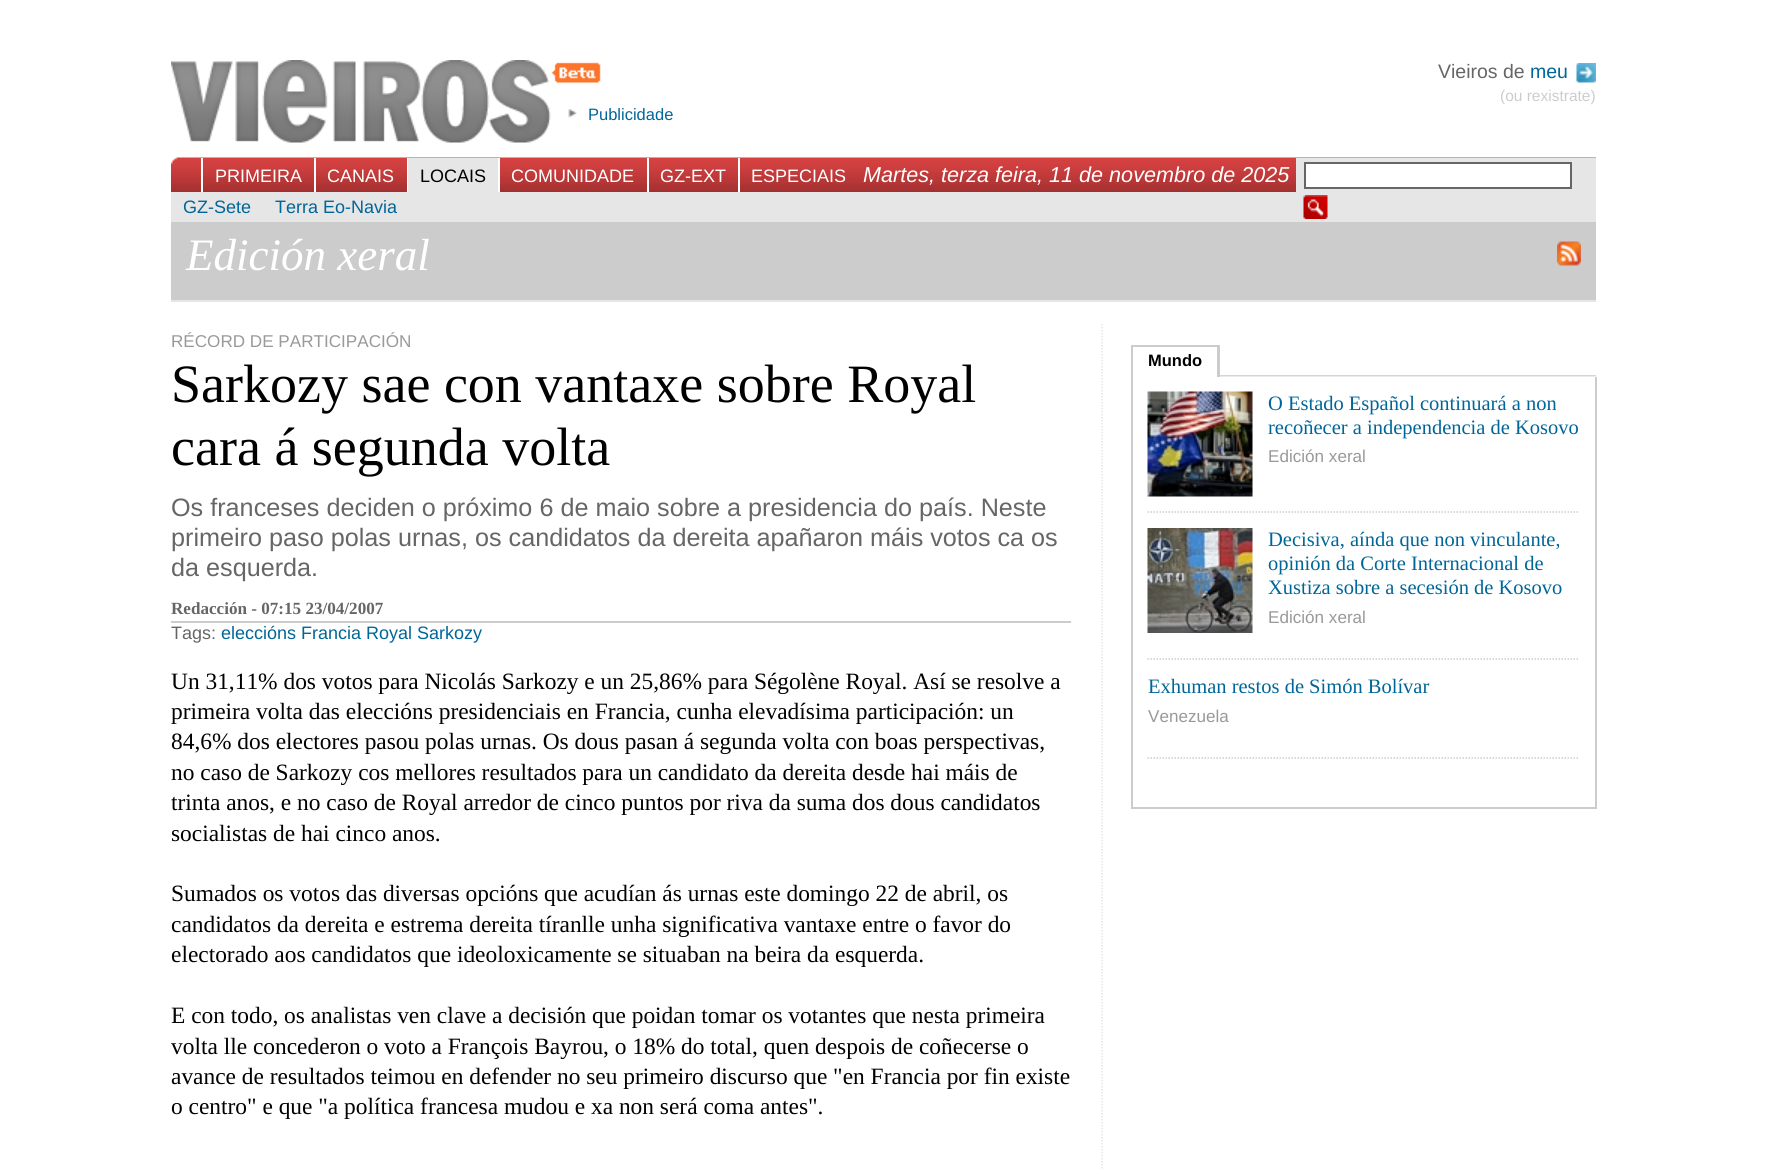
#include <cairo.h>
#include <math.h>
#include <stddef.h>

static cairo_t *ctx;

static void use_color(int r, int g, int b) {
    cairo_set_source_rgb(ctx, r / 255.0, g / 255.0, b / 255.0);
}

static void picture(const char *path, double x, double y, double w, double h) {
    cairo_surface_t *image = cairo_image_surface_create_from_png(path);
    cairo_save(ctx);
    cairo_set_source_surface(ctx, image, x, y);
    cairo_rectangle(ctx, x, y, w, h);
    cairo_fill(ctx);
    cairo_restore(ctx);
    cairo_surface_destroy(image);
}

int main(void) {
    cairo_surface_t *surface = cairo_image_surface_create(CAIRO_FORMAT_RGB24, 1766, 1169);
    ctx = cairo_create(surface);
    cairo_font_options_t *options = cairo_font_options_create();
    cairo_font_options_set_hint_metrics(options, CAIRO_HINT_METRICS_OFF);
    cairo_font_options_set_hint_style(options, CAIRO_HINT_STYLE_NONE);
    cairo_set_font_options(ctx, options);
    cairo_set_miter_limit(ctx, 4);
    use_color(255, 255, 255);
    cairo_paint(ctx);
    picture("img1.png", 171, 60, 430, 83);
    cairo_select_font_face(ctx, "Liberation Sans", CAIRO_FONT_SLANT_NORMAL, CAIRO_FONT_WEIGHT_NORMAL);
    cairo_set_font_size(ctx, 19.5);
    use_color(102, 102, 102);
    cairo_move_to(ctx, 1438, 78);
    cairo_show_text(ctx, "Vieiros de");
    use_color(0, 102, 153);
    cairo_move_to(ctx, 1530, 78);
    cairo_show_text(ctx, "meu");
    picture("img2.png", 1576, 63, 20, 20);
    cairo_set_font_size(ctx, 15.5);
    use_color(204, 204, 204);
    cairo_move_to(ctx, 1500, 101);
    cairo_show_text(ctx, "(ou rexistrate)");
    picture("img3.png", 568, 109, 9, 9);
    cairo_set_font_size(ctx, 16.5);
    use_color(0, 102, 153);
    cairo_move_to(ctx, 588, 120);
    cairo_show_text(ctx, "Publicidade");
    picture("img4.png", 171, 157, 1425, 35);
    use_color(255, 255, 255);
    cairo_rectangle(ctx, 201, 158, 2, 34);
    cairo_fill(ctx);
    cairo_set_font_size(ctx, 18);
    cairo_move_to(ctx, 215, 182);
    cairo_show_text(ctx, "PRIMEIRA");
    cairo_rectangle(ctx, 314, 158, 2, 34);
    cairo_fill(ctx);
    cairo_move_to(ctx, 327, 182);
    cairo_show_text(ctx, "CANAIS");
    cairo_rectangle(ctx, 407, 158, 1, 34);
    cairo_fill(ctx);
    use_color(230, 230, 230);
    cairo_rectangle(ctx, 408, 158, 90, 34);
    cairo_fill(ctx);
    use_color(0, 0, 0);
    cairo_move_to(ctx, 420, 182);
    cairo_show_text(ctx, "LOCAIS");
    use_color(255, 255, 255);
    cairo_rectangle(ctx, 498, 158, 2, 34);
    cairo_fill(ctx);
    cairo_move_to(ctx, 511, 182);
    cairo_show_text(ctx, "COMUNIDADE");
    cairo_rectangle(ctx, 647, 158, 2, 34);
    cairo_fill(ctx);
    cairo_move_to(ctx, 660, 182);
    cairo_show_text(ctx, "GZ-EXT");
    cairo_rectangle(ctx, 738, 158, 2, 34);
    cairo_fill(ctx);
    cairo_move_to(ctx, 751, 182);
    cairo_show_text(ctx, "ESPECIAIS");
    cairo_select_font_face(ctx, "Liberation Sans", CAIRO_FONT_SLANT_ITALIC, CAIRO_FONT_WEIGHT_NORMAL);
    cairo_set_font_size(ctx, 21.6);
    cairo_move_to(ctx, 863, 182);
    cairo_show_text(ctx, "Martes, terza feira, 11 de novembro de 2025");
    use_color(230, 230, 230);
    cairo_rectangle(ctx, 1296, 158, 300, 34);
    cairo_fill(ctx);
    use_color(255, 255, 255);
    cairo_rectangle(ctx, 1305, 163, 266, 25);
    cairo_fill_preserve(ctx);
    use_color(102, 102, 102);
    cairo_stroke(ctx);
    use_color(230, 230, 230);
    cairo_rectangle(ctx, 171, 192, 1425, 30);
    cairo_fill(ctx);
    picture("img5.png", 1303, 195, 25, 24);
    cairo_select_font_face(ctx, "Liberation Sans", CAIRO_FONT_SLANT_NORMAL, CAIRO_FONT_WEIGHT_NORMAL);
    cairo_set_font_size(ctx, 18);
    use_color(0, 102, 153);
    cairo_move_to(ctx, 183, 213);
    cairo_show_text(ctx, "GZ-Sete");
    cairo_move_to(ctx, 275, 213);
    cairo_show_text(ctx, "Terra Eo-Navia");
    use_color(204, 204, 204);
    cairo_rectangle(ctx, 171, 222, 1425, 78);
    cairo_fill(ctx);
    use_color(230, 230, 230);
    cairo_rectangle(ctx, 171, 300, 1425, 2);
    cairo_fill(ctx);
    cairo_select_font_face(ctx, "Liberation Serif", CAIRO_FONT_SLANT_ITALIC, CAIRO_FONT_WEIGHT_NORMAL);
    cairo_set_font_size(ctx, 45);
    use_color(255, 255, 255);
    cairo_move_to(ctx, 186, 270);
    cairo_show_text(ctx, "Edición xeral");
    picture("img6.png", 1557, 241, 24, 25);
    cairo_new_path(ctx);
    cairo_move_to(ctx, 1102, 324);
    cairo_line_to(ctx, 1102, 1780.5);
    use_color(230, 230, 230);
    cairo_set_line_width(ctx, 1.5);
    cairo_set_dash(ctx, (double[]){1.5, 1.5}, 2, 0);
    cairo_stroke(ctx);
    cairo_select_font_face(ctx, "Liberation Sans", CAIRO_FONT_SLANT_NORMAL, CAIRO_FONT_WEIGHT_NORMAL);
    cairo_set_font_size(ctx, 17.1);
    use_color(153, 153, 153);
    cairo_move_to(ctx, 171, 347);
    cairo_show_text(ctx, "RÉCORD DE PARTICIPACIÓN");
    cairo_select_font_face(ctx, "Liberation Serif", CAIRO_FONT_SLANT_NORMAL, CAIRO_FONT_WEIGHT_NORMAL);
    cairo_set_font_size(ctx, 54);
    use_color(0, 0, 0);
    cairo_move_to(ctx, 171, 402);
    cairo_show_text(ctx, "Sarkozy sae con vantaxe sobre Royal");
    cairo_move_to(ctx, 171, 465);
    cairo_show_text(ctx, "cara á segunda volta");
    cairo_select_font_face(ctx, "Liberation Sans", CAIRO_FONT_SLANT_NORMAL, CAIRO_FONT_WEIGHT_NORMAL);
    cairo_set_font_size(ctx, 25.2);
    use_color(102, 102, 102);
    cairo_move_to(ctx, 171, 516);
    cairo_show_text(ctx, "Os franceses deciden o próximo 6 de maio sobre a presidencia do país. Neste");
    cairo_move_to(ctx, 171, 546);
    cairo_show_text(ctx, "primeiro paso polas urnas, os candidatos da dereita apañaron máis votos ca os");
    cairo_move_to(ctx, 171, 576);
    cairo_show_text(ctx, "da esquerda.");
    use_color(204, 204, 204);
    cairo_rectangle(ctx, 171, 621, 900, 2);
    cairo_fill(ctx);
    cairo_select_font_face(ctx, "Liberation Serif", CAIRO_FONT_SLANT_NORMAL, CAIRO_FONT_WEIGHT_BOLD);
    cairo_set_font_size(ctx, 17.1);
    use_color(102, 102, 102);
    cairo_move_to(ctx, 171, 614);
    cairo_show_text(ctx, "Redacción - 07:15 23/04/2007");
    cairo_select_font_face(ctx, "Liberation Sans", CAIRO_FONT_SLANT_NORMAL, CAIRO_FONT_WEIGHT_NORMAL);
    cairo_set_font_size(ctx, 18);
    cairo_move_to(ctx, 171, 639);
    cairo_show_text(ctx, "Tags:");
    use_color(0, 102, 153);
    cairo_move_to(ctx, 221, 639);
    cairo_show_text(ctx, "eleccións Francia Royal Sarkozy");
    cairo_select_font_face(ctx, "Liberation Serif", CAIRO_FONT_SLANT_NORMAL, CAIRO_FONT_WEIGHT_NORMAL);
    cairo_set_font_size(ctx, 23.4);
    use_color(0, 0, 0);
    cairo_move_to(ctx, 171, 689);
    cairo_show_text(ctx, "Un 31,11% dos votos para Nicolás Sarkozy e un 25,86% para Ségolène Royal. Así se resolve a");
    cairo_move_to(ctx, 171, 719);
    cairo_show_text(ctx, "primeira volta das eleccións presidenciais en Francia, cunha elevadísima participación: un");
    cairo_move_to(ctx, 171, 749);
    cairo_show_text(ctx, "84,6% dos electores pasou polas urnas. Os dous pasan á segunda volta con boas perspectivas,");
    cairo_move_to(ctx, 171, 780);
    cairo_show_text(ctx, "no caso de Sarkozy cos mellores resultados para un candidato da dereita desde hai máis de");
    cairo_move_to(ctx, 171, 810);
    cairo_show_text(ctx, "trinta anos, e no caso de Royal arredor de cinco puntos por riva da suma dos dous candidatos");
    cairo_move_to(ctx, 171, 841);
    cairo_show_text(ctx, "socialistas de hai cinco anos.");
    cairo_move_to(ctx, 171, 901);
    cairo_show_text(ctx, "Sumados os votos das diversas opcións que acudían ás urnas este domingo 22 de abril, os");
    cairo_move_to(ctx, 171, 932);
    cairo_show_text(ctx, "candidatos da dereita e estrema dereita tíranlle unha significativa vantaxe entre o favor do");
    cairo_move_to(ctx, 171, 962);
    cairo_show_text(ctx, "electorado aos candidatos que ideoloxicamente se situaban na beira da esquerda.");
    cairo_move_to(ctx, 171, 1023);
    cairo_show_text(ctx, "E con todo, os analistas ven clave a decisión que poidan tomar os votantes que nesta primeira");
    cairo_move_to(ctx, 171, 1054);
    cairo_show_text(ctx, "volta lle concederon o voto a François Bayrou, o 18% do total, quen despois de coñecerse o");
    cairo_move_to(ctx, 171, 1084);
    cairo_show_text(ctx, "avance de resultados teimou en defender no seu primeiro discurso que \"en Francia por fin existe");
    cairo_move_to(ctx, 171, 1114);
    cairo_show_text(ctx, "o centro\" e que \"a política francesa mudou e xa non será coma antes\".");
    picture("img7.png", 1220, 375, 376, 2);
    use_color(204, 204, 204);
    cairo_rectangle(ctx, 1131, 345, 89, 2);
    cairo_fill(ctx);
    cairo_rectangle(ctx, 1217, 345, 3, 32);
    cairo_fill(ctx);
    cairo_rectangle(ctx, 1131, 345, 2, 32);
    cairo_fill(ctx);
    cairo_select_font_face(ctx, "Liberation Sans", CAIRO_FONT_SLANT_NORMAL, CAIRO_FONT_WEIGHT_BOLD);
    cairo_set_font_size(ctx, 16.5);
    use_color(0, 0, 0);
    cairo_move_to(ctx, 1148, 366);
    cairo_show_text(ctx, "Mundo");
    use_color(204, 204, 204);
    cairo_rectangle(ctx, 1595, 377, 2, 432);
    cairo_fill(ctx);
    cairo_rectangle(ctx, 1131, 807, 465, 2);
    cairo_fill(ctx);
    cairo_rectangle(ctx, 1131, 377, 2, 432);
    cairo_fill(ctx);
    cairo_new_path(ctx);
    cairo_move_to(ctx, 1147.5, 512);
    cairo_line_to(ctx, 1579.5, 512);
    cairo_stroke(ctx);
    picture("img8.png", 1147, 391, 106, 106);
    cairo_select_font_face(ctx, "Liberation Serif", CAIRO_FONT_SLANT_NORMAL, CAIRO_FONT_WEIGHT_NORMAL);
    cairo_set_font_size(ctx, 20.5);
    use_color(0, 102, 153);
    cairo_move_to(ctx, 1268, 410);
    cairo_show_text(ctx, "O Estado Español continuará a non");
    cairo_move_to(ctx, 1268, 434);
    cairo_show_text(ctx, "recoñecer a independencia de Kosovo");
    cairo_select_font_face(ctx, "Liberation Sans", CAIRO_FONT_SLANT_NORMAL, CAIRO_FONT_WEIGHT_NORMAL);
    cairo_set_font_size(ctx, 17.1);
    use_color(153, 153, 153);
    cairo_move_to(ctx, 1268, 462);
    cairo_show_text(ctx, "Edición xeral");
    cairo_new_path(ctx);
    cairo_move_to(ctx, 1147.5, 659);
    cairo_line_to(ctx, 1579.5, 659);
    use_color(204, 204, 204);
    cairo_stroke(ctx);
    picture("img9.png", 1147, 528, 106, 105);
    cairo_select_font_face(ctx, "Liberation Serif", CAIRO_FONT_SLANT_NORMAL, CAIRO_FONT_WEIGHT_NORMAL);
    cairo_set_font_size(ctx, 20.5);
    use_color(0, 102, 153);
    cairo_move_to(ctx, 1268, 546);
    cairo_show_text(ctx, "Decisiva, aínda que non vinculante,");
    cairo_move_to(ctx, 1268, 570);
    cairo_show_text(ctx, "opinión da Corte Internacional de");
    cairo_move_to(ctx, 1268, 594);
    cairo_show_text(ctx, "Xustiza sobre a secesión de Kosovo");
    cairo_select_font_face(ctx, "Liberation Sans", CAIRO_FONT_SLANT_NORMAL, CAIRO_FONT_WEIGHT_NORMAL);
    cairo_set_font_size(ctx, 17.1);
    use_color(153, 153, 153);
    cairo_move_to(ctx, 1268, 623);
    cairo_show_text(ctx, "Edición xeral");
    cairo_new_path(ctx);
    cairo_move_to(ctx, 1147.5, 758);
    cairo_line_to(ctx, 1579.5, 758);
    use_color(204, 204, 204);
    cairo_stroke(ctx);
    cairo_select_font_face(ctx, "Liberation Serif", CAIRO_FONT_SLANT_NORMAL, CAIRO_FONT_WEIGHT_NORMAL);
    cairo_set_font_size(ctx, 20.5);
    use_color(0, 102, 153);
    cairo_move_to(ctx, 1148, 693);
    cairo_show_text(ctx, "Exhuman restos de Simón Bolívar");
    cairo_select_font_face(ctx, "Liberation Sans", CAIRO_FONT_SLANT_NORMAL, CAIRO_FONT_WEIGHT_NORMAL);
    cairo_set_font_size(ctx, 17.1);
    use_color(153, 153, 153);
    cairo_move_to(ctx, 1148, 722);
    cairo_show_text(ctx, "Venezuela");
    cairo_surface_write_to_png(surface, "result.png");
    cairo_font_options_destroy(options);
    cairo_destroy(ctx);
    cairo_surface_destroy(surface);
    return 0;
}
